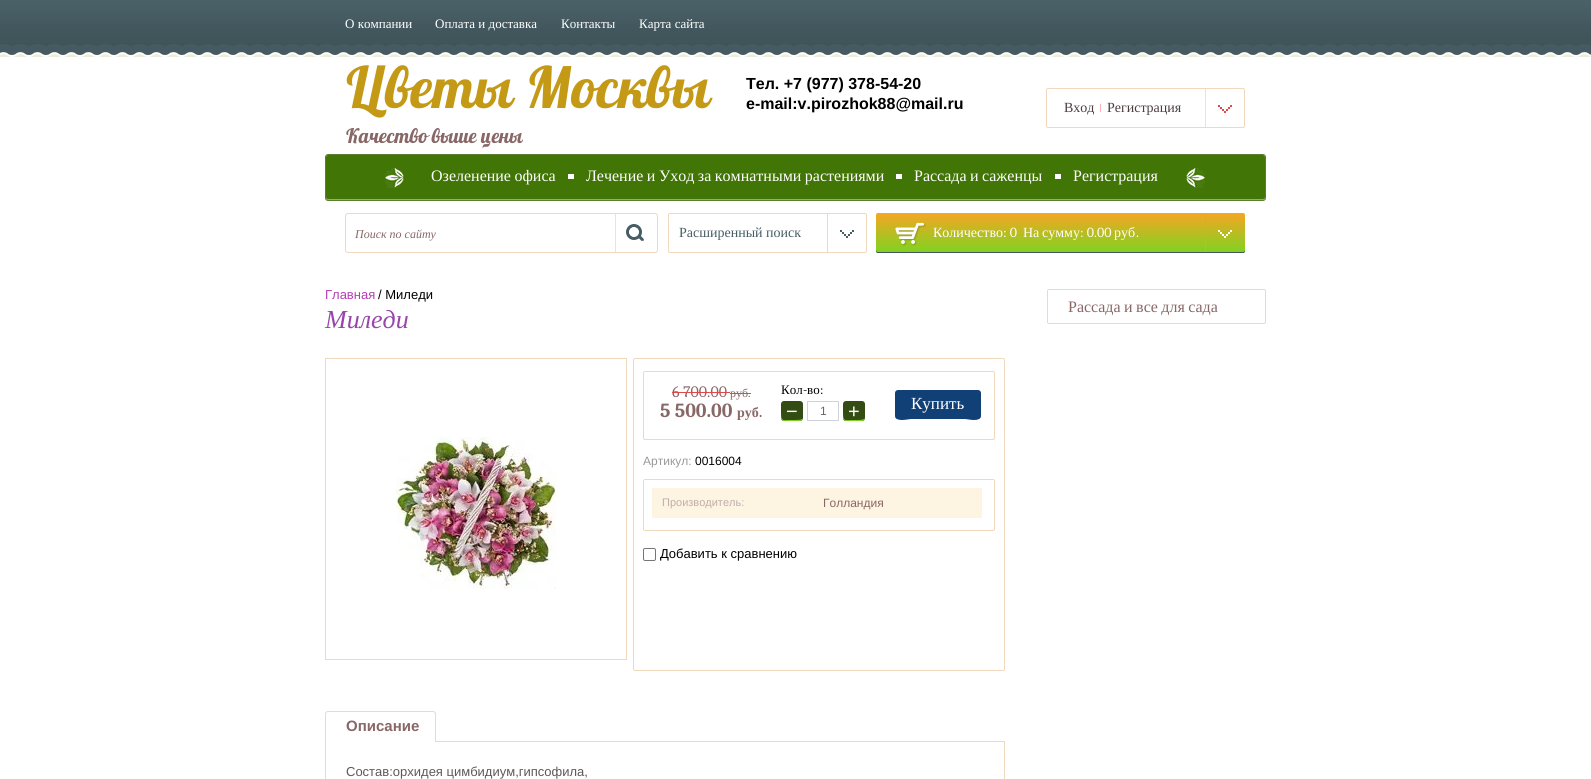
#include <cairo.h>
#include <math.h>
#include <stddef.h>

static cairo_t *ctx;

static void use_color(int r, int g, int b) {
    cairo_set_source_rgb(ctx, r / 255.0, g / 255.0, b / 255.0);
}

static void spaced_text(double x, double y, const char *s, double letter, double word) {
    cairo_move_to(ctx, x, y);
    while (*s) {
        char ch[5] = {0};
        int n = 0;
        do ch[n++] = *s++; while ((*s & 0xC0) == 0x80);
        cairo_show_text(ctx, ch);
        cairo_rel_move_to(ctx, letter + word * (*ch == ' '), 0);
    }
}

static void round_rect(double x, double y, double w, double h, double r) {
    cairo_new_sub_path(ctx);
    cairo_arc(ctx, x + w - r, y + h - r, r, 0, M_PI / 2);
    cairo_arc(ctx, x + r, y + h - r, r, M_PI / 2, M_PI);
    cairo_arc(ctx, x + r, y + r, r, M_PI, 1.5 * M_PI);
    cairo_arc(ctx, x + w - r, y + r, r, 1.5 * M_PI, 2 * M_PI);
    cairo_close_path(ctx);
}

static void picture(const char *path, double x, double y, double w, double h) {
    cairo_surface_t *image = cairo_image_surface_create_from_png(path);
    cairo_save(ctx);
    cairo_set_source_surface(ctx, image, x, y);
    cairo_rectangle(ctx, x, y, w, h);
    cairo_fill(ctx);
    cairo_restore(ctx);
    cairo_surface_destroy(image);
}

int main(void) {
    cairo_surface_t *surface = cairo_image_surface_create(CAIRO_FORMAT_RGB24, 1591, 779);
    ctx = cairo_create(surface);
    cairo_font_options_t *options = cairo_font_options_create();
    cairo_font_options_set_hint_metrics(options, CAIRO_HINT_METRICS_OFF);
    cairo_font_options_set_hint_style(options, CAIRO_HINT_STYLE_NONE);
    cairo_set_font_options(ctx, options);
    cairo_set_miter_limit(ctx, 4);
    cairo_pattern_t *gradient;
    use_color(255, 255, 255);
    cairo_paint(ctx);
    picture("img1.png", 0, 0, 1591, 57);
    cairo_select_font_face(ctx, "Liberation Serif", CAIRO_FONT_SLANT_NORMAL, CAIRO_FONT_WEIGHT_NORMAL);
    cairo_set_font_size(ctx, 13);
    use_color(255, 255, 255);
    cairo_move_to(ctx, 345, 28);
    cairo_show_text(ctx, "О компании");
    cairo_move_to(ctx, 435, 28);
    cairo_show_text(ctx, "Оплата и доставка");
    cairo_move_to(ctx, 561, 28);
    cairo_show_text(ctx, "Контакты");
    cairo_move_to(ctx, 639, 28);
    cairo_show_text(ctx, "Карта сайта");
    cairo_select_font_face(ctx, "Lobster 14", CAIRO_FONT_SLANT_NORMAL, CAIRO_FONT_WEIGHT_NORMAL);
    cairo_set_font_size(ctx, 57);
    use_color(196, 153, 21);
    cairo_move_to(ctx, 346, 108);
    cairo_show_text(ctx, "Цветы Москвы");
    cairo_set_font_size(ctx, 20);
    use_color(136, 103, 102);
    cairo_move_to(ctx, 346, 143);
    cairo_show_text(ctx, "Качество выше цены");
    cairo_select_font_face(ctx, "Liberation Sans", CAIRO_FONT_SLANT_NORMAL, CAIRO_FONT_WEIGHT_BOLD);
    cairo_set_font_size(ctx, 16);
    use_color(0, 0, 0);
    cairo_move_to(ctx, 746, 89);
    cairo_show_text(ctx, "Тел. +7 (977) 378-54-20");
    cairo_move_to(ctx, 746, 109);
    cairo_show_text(ctx, "e-mail:v.pirozhok88@mail.ru");
    round_rect(1046.5, 88.5, 198, 39, 1.5);
    use_color(240, 216, 189);
    cairo_set_line_width(ctx, 1);
    cairo_stroke(ctx);
    cairo_select_font_face(ctx, "Liberation Serif", CAIRO_FONT_SLANT_NORMAL, CAIRO_FONT_WEIGHT_NORMAL);
    cairo_set_font_size(ctx, 14);
    use_color(77, 61, 62);
    cairo_move_to(ctx, 1064, 112);
    cairo_show_text(ctx, "Вход");
    use_color(248, 178, 183);
    cairo_rectangle(ctx, 1100, 104, 1, 8);
    cairo_fill(ctx);
    use_color(77, 61, 62);
    cairo_move_to(ctx, 1107, 112);
    cairo_show_text(ctx, "Регистрация");
    picture("img2.png", 1218, 105, 14, 8);
    use_color(245, 224, 201);
    cairo_rectangle(ctx, 1205, 89, 1, 38);
    cairo_fill(ctx);
    use_color(65, 117, 5);
    round_rect(326, 155, 939, 45, 2);
    cairo_fill(ctx);
    use_color(179, 155, 148);
    cairo_new_path(ctx);
    cairo_move_to(ctx, 326, 197);
    cairo_line_to(ctx, 326, 198);
    cairo_curve_to(ctx, 326, 199, 327, 200, 328, 200);
    cairo_line_to(ctx, 1263, 200);
    cairo_curve_to(ctx, 1264, 200, 1265, 199, 1265, 198);
    cairo_line_to(ctx, 1265, 197);
    cairo_curve_to(ctx, 1265, 198, 1264, 199, 1263, 199);
    cairo_line_to(ctx, 328, 199);
    cairo_curve_to(ctx, 327, 199, 326, 198, 326, 197);
    cairo_close_path(ctx);
    cairo_fill(ctx);
    round_rect(325.5, 154.5, 940, 46, 2.5);
    use_color(91, 127, 47);
    cairo_stroke(ctx);
    picture("img3.png", 385, 168, 19, 20);
    cairo_set_font_size(ctx, 16);
    use_color(255, 255, 255);
    spaced_text(431, 181, "Озеленение офиса", 0, -0.5);
    cairo_rectangle(ctx, 568, 174, 6, 5);
    cairo_fill(ctx);
    spaced_text(586, 181, "Лечение и Уход за комнатными растениями", 0, -0.5);
    cairo_rectangle(ctx, 896, 174, 6, 5);
    cairo_fill(ctx);
    spaced_text(914, 181, "Рассада и саженцы", 0, -0.5);
    cairo_rectangle(ctx, 1055, 174, 6, 5);
    cairo_fill(ctx);
    cairo_move_to(ctx, 1073, 181);
    cairo_show_text(ctx, "Регистрация");
    picture("img4.png", 1186, 168, 19, 20);
    round_rect(345.5, 213.5, 312, 39, 2.5);
    use_color(240, 216, 189);
    cairo_stroke(ctx);
    cairo_select_font_face(ctx, "Liberation Serif", CAIRO_FONT_SLANT_ITALIC, CAIRO_FONT_WEIGHT_NORMAL);
    cairo_set_font_size(ctx, 12);
    use_color(136, 103, 102);
    cairo_move_to(ctx, 355, 238);
    cairo_show_text(ctx, "Поиск по сайту");
    picture("img5.png", 626, 224, 18, 17);
    use_color(245, 224, 201);
    cairo_rectangle(ctx, 615, 214, 1, 38);
    cairo_fill(ctx);
    round_rect(668.5, 213.5, 198, 39, 1.5);
    use_color(240, 216, 189);
    cairo_stroke(ctx);
    cairo_select_font_face(ctx, "Liberation Serif", CAIRO_FONT_SLANT_NORMAL, CAIRO_FONT_WEIGHT_NORMAL);
    cairo_set_font_size(ctx, 14);
    use_color(70, 93, 99);
    cairo_move_to(ctx, 679, 237);
    cairo_show_text(ctx, "Расширенный поиск");
    picture("img6.png", 840, 230, 14, 8);
    use_color(240, 216, 189);
    cairo_rectangle(ctx, 827, 214, 1, 38);
    cairo_fill(ctx);
    gradient = cairo_pattern_create_linear(1061, 213, 1061, 253);
    cairo_pattern_add_color_stop_rgba(gradient, 0, 0.961, 0.651, 0.137, 1);
    cairo_pattern_add_color_stop_rgba(gradient, 1, 0.494, 0.827, 0.129, 1);
    cairo_set_source(ctx, gradient);
    cairo_pattern_destroy(gradient);
    round_rect(876, 213, 369, 40, 2);
    cairo_fill(ctx);
    use_color(65, 86, 92);
    cairo_new_path(ctx);
    cairo_move_to(ctx, 876, 250);
    cairo_curve_to(ctx, 876, 251, 876, 253, 878, 253);
    cairo_line_to(ctx, 1243, 253);
    cairo_curve_to(ctx, 1245, 253, 1245, 251, 1245, 250);
    cairo_curve_to(ctx, 1245, 251, 1244, 252, 1243, 252);
    cairo_line_to(ctx, 878, 252);
    cairo_curve_to(ctx, 877, 252, 876, 251, 876, 250);
    cairo_close_path(ctx);
    cairo_fill(ctx);
    picture("img7.png", 895, 222, 31, 24);
    use_color(255, 255, 255);
    cairo_move_to(ctx, 933, 237);
    cairo_show_text(ctx, "Количество");
    cairo_select_font_face(ctx, "Caladea", CAIRO_FONT_SLANT_NORMAL, CAIRO_FONT_WEIGHT_NORMAL);
    cairo_move_to(ctx, 1003, 237);
    cairo_show_text(ctx, ": 0");
    cairo_select_font_face(ctx, "Liberation Serif", CAIRO_FONT_SLANT_NORMAL, CAIRO_FONT_WEIGHT_NORMAL);
    cairo_move_to(ctx, 1023, 237);
    cairo_show_text(ctx, "На");
    cairo_move_to(ctx, 1042, 237);
    cairo_show_text(ctx, "сумму");
    cairo_select_font_face(ctx, "Caladea", CAIRO_FONT_SLANT_NORMAL, CAIRO_FONT_WEIGHT_NORMAL);
    cairo_move_to(ctx, 1080, 237);
    cairo_show_text(ctx, ": 0.00");
    cairo_select_font_face(ctx, "Liberation Serif", CAIRO_FONT_SLANT_NORMAL, CAIRO_FONT_WEIGHT_NORMAL);
    cairo_move_to(ctx, 1114, 237);
    cairo_show_text(ctx, "руб");
    cairo_select_font_face(ctx, "Caladea", CAIRO_FONT_SLANT_NORMAL, CAIRO_FONT_WEIGHT_NORMAL);
    cairo_move_to(ctx, 1136, 237);
    cairo_show_text(ctx, ".");
    picture("img8.png", 1218, 230, 14, 8);
    use_color(163, 174, 177);
    cairo_rectangle(ctx, 1205, 213, 1, 39);
    cairo_fill(ctx);
    cairo_select_font_face(ctx, "Liberation Sans", CAIRO_FONT_SLANT_NORMAL, CAIRO_FONT_WEIGHT_NORMAL);
    cairo_set_font_size(ctx, 13);
    use_color(181, 61, 181);
    cairo_move_to(ctx, 325, 299);
    cairo_show_text(ctx, "Главная");
    use_color(0, 0, 0);
    cairo_move_to(ctx, 378, 299);
    cairo_show_text(ctx, "/ Миледи");
    cairo_select_font_face(ctx, "Liberation Serif", CAIRO_FONT_SLANT_ITALIC, CAIRO_FONT_WEIGHT_NORMAL);
    cairo_set_font_size(ctx, 26);
    use_color(152, 70, 170);
    cairo_move_to(ctx, 325, 328);
    cairo_show_text(ctx, "Миледи");
    cairo_rectangle(ctx, 325.5, 358.5, 301, 301);
    use_color(240, 216, 189);
    cairo_stroke(ctx);
    picture("img9.png", 396, 437, 160, 152);
    round_rect(633.5, 358.5, 371, 312, 1.5);
    cairo_stroke(ctx);
    round_rect(643.5, 371.5, 351, 68, 1.5);
    cairo_stroke(ctx);
    cairo_select_font_face(ctx, "Caladea", CAIRO_FONT_SLANT_NORMAL, CAIRO_FONT_WEIGHT_NORMAL);
    cairo_set_font_size(ctx, 16);
    use_color(136, 103, 102);
    cairo_move_to(ctx, 672, 397);
    cairo_show_text(ctx, "6 700.00");
    use_color(225, 72, 76);
    cairo_rectangle(ctx, 672, 392, 58, 1);
    cairo_fill(ctx);
    cairo_select_font_face(ctx, "Liberation Serif", CAIRO_FONT_SLANT_NORMAL, CAIRO_FONT_WEIGHT_NORMAL);
    cairo_set_font_size(ctx, 12);
    use_color(136, 103, 102);
    cairo_move_to(ctx, 730, 397);
    cairo_show_text(ctx, "руб");
    use_color(225, 72, 76);
    cairo_rectangle(ctx, 730, 393, 21, 1);
    cairo_fill(ctx);
    cairo_select_font_face(ctx, "Caladea", CAIRO_FONT_SLANT_NORMAL, CAIRO_FONT_WEIGHT_NORMAL);
    use_color(136, 103, 102);
    cairo_move_to(ctx, 748, 397);
    cairo_show_text(ctx, ".");
    cairo_select_font_face(ctx, "Caladea", CAIRO_FONT_SLANT_NORMAL, CAIRO_FONT_WEIGHT_BOLD);
    cairo_set_font_size(ctx, 20);
    cairo_move_to(ctx, 660, 417);
    cairo_show_text(ctx, "5 500.00");
    cairo_select_font_face(ctx, "Liberation Serif", CAIRO_FONT_SLANT_NORMAL, CAIRO_FONT_WEIGHT_BOLD);
    cairo_set_font_size(ctx, 14);
    cairo_move_to(ctx, 737, 417);
    cairo_show_text(ctx, "руб");
    cairo_select_font_face(ctx, "Caladea", CAIRO_FONT_SLANT_NORMAL, CAIRO_FONT_WEIGHT_BOLD);
    cairo_move_to(ctx, 759, 417);
    cairo_show_text(ctx, ".");
    cairo_select_font_face(ctx, "Liberation Serif", CAIRO_FONT_SLANT_NORMAL, CAIRO_FONT_WEIGHT_NORMAL);
    cairo_set_font_size(ctx, 13);
    use_color(0, 0, 0);
    cairo_move_to(ctx, 781, 394);
    cairo_show_text(ctx, "Кол");
    cairo_select_font_face(ctx, "Caladea", CAIRO_FONT_SLANT_NORMAL, CAIRO_FONT_WEIGHT_NORMAL);
    cairo_move_to(ctx, 803, 394);
    cairo_show_text(ctx, "-");
    cairo_select_font_face(ctx, "Liberation Serif", CAIRO_FONT_SLANT_NORMAL, CAIRO_FONT_WEIGHT_NORMAL);
    cairo_move_to(ctx, 807, 394);
    cairo_show_text(ctx, "во");
    cairo_select_font_face(ctx, "Caladea", CAIRO_FONT_SLANT_NORMAL, CAIRO_FONT_WEIGHT_NORMAL);
    cairo_move_to(ctx, 820, 394);
    cairo_show_text(ctx, ":");
    use_color(50, 76, 19);
    round_rect(781, 401, 22, 20, 3);
    cairo_fill(ctx);
    use_color(126, 211, 33);
    cairo_new_path(ctx);
    cairo_move_to(ctx, 781, 410);
    cairo_line_to(ctx, 781, 418);
    cairo_curve_to(ctx, 781, 419.5, 782.5, 421, 784, 421);
    cairo_line_to(ctx, 800, 421);
    cairo_curve_to(ctx, 801.5, 421, 803, 419.5, 803, 418);
    cairo_curve_to(ctx, 802.5, 419.5, 800, 420, 795, 420);
    cairo_line_to(ctx, 789, 420);
    cairo_curve_to(ctx, 781.5, 420.5, 781, 420.5, 781, 410);
    cairo_close_path(ctx);
    cairo_fill(ctx);
    cairo_select_font_face(ctx, "Liberation Sans", CAIRO_FONT_SLANT_NORMAL, CAIRO_FONT_WEIGHT_NORMAL);
    cairo_set_font_size(ctx, 20);
    use_color(255, 255, 255);
    cairo_move_to(ctx, 786, 418);
    cairo_show_text(ctx, "−");
    cairo_rectangle(ctx, 807.5, 401.5, 31, 19);
    use_color(206, 210, 218);
    cairo_stroke(ctx);
    cairo_set_font_size(ctx, 12);
    use_color(102, 102, 102);
    cairo_move_to(ctx, 820, 415);
    cairo_show_text(ctx, "1");
    use_color(50, 76, 19);
    round_rect(843, 401, 22, 20, 3);
    cairo_fill(ctx);
    use_color(126, 211, 33);
    cairo_new_path(ctx);
    cairo_move_to(ctx, 843, 410);
    cairo_line_to(ctx, 843, 418);
    cairo_curve_to(ctx, 843, 419.5, 844.5, 421, 846, 421);
    cairo_line_to(ctx, 862, 421);
    cairo_curve_to(ctx, 863.5, 421, 865, 419.5, 865, 418);
    cairo_curve_to(ctx, 864.5, 419.5, 862, 420, 857, 420);
    cairo_line_to(ctx, 851, 420);
    cairo_curve_to(ctx, 843.5, 420.5, 843, 420.5, 843, 410);
    cairo_close_path(ctx);
    cairo_fill(ctx);
    cairo_set_font_size(ctx, 20);
    use_color(255, 255, 255);
    cairo_move_to(ctx, 848, 418);
    cairo_show_text(ctx, "+");
    use_color(17, 64, 119);
    round_rect(895, 390, 86, 29, 3);
    cairo_fill(ctx);
    cairo_new_path(ctx);
    cairo_move_to(ctx, 895, 415);
    cairo_curve_to(ctx, 895, 423, 908, 419, 911, 419);
    cairo_line_to(ctx, 965, 419);
    cairo_curve_to(ctx, 968, 419, 981, 423, 981, 415);
    cairo_curve_to(ctx, 981, 417, 980, 418, 978, 418);
    cairo_line_to(ctx, 898, 418);
    cairo_curve_to(ctx, 896, 418, 895, 417, 895, 415);
    cairo_close_path(ctx);
    cairo_fill(ctx);
    cairo_select_font_face(ctx, "Liberation Serif", CAIRO_FONT_SLANT_NORMAL, CAIRO_FONT_WEIGHT_NORMAL);
    cairo_set_font_size(ctx, 17);
    use_color(255, 255, 255);
    cairo_move_to(ctx, 911, 409);
    cairo_show_text(ctx, "Купить");
    cairo_select_font_face(ctx, "Liberation Sans", CAIRO_FONT_SLANT_NORMAL, CAIRO_FONT_WEIGHT_NORMAL);
    cairo_set_font_size(ctx, 12);
    use_color(153, 153, 153);
    cairo_move_to(ctx, 643, 465);
    cairo_show_text(ctx, "Артикул:");
    use_color(0, 0, 0);
    cairo_move_to(ctx, 695, 465);
    cairo_show_text(ctx, "0016004");
    round_rect(643.5, 479.5, 351, 51, 1.5);
    use_color(240, 216, 189);
    cairo_stroke(ctx);
    use_color(254, 244, 226);
    cairo_rectangle(ctx, 652, 488, 330, 30);
    cairo_fill(ctx);
    cairo_set_font_size(ctx, 11);
    use_color(192, 173, 172);
    cairo_move_to(ctx, 662, 506);
    cairo_show_text(ctx, "Производитель:");
    cairo_set_font_size(ctx, 12);
    use_color(136, 103, 102);
    cairo_move_to(ctx, 823, 507);
    cairo_show_text(ctx, "Голландия");
    round_rect(643.5, 548.5, 12, 12, 1.5);
    use_color(118, 118, 118);
    cairo_stroke(ctx);
    cairo_set_font_size(ctx, 13);
    use_color(0, 0, 0);
    cairo_move_to(ctx, 660, 558);
    cairo_show_text(ctx, "Добавить к сравнению");
    cairo_new_path(ctx);
    cairo_move_to(ctx, 328, 711.5);
    cairo_line_to(ctx, 433, 711.5);
    cairo_curve_to(ctx, 434.5, 711.5, 435.5, 712.5, 435.5, 714);
    cairo_line_to(ctx, 435.5, 740.5);
    cairo_line_to(ctx, 325.5, 740.5);
    cairo_line_to(ctx, 325.5, 714);
    cairo_curve_to(ctx, 325.5, 712.5, 326.5, 711.5, 328, 711.5);
    cairo_close_path(ctx);
    use_color(240, 216, 189);
    cairo_stroke(ctx);
    cairo_select_font_face(ctx, "Liberation Sans", CAIRO_FONT_SLANT_NORMAL, CAIRO_FONT_WEIGHT_BOLD);
    cairo_set_font_size(ctx, 15);
    use_color(136, 103, 102);
    cairo_move_to(ctx, 346, 731);
    cairo_show_text(ctx, "Описание");
    cairo_rectangle(ctx, 325.5, 741.5, 679, 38);
    use_color(240, 216, 189);
    cairo_stroke(ctx);
    use_color(255, 255, 255);
    cairo_rectangle(ctx, 326, 740, 109, 2);
    cairo_fill(ctx);
    cairo_select_font_face(ctx, "Liberation Sans", CAIRO_FONT_SLANT_NORMAL, CAIRO_FONT_WEIGHT_NORMAL);
    cairo_set_font_size(ctx, 13);
    use_color(95, 87, 88);
    cairo_move_to(ctx, 346, 776);
    cairo_show_text(ctx, "Состав:орхидея цимбидиум,гипсофила,");
    round_rect(1047.5, 289.5, 218, 34, 1.5);
    use_color(240, 216, 189);
    cairo_stroke(ctx);
    cairo_select_font_face(ctx, "Liberation Serif", CAIRO_FONT_SLANT_NORMAL, CAIRO_FONT_WEIGHT_NORMAL);
    cairo_set_font_size(ctx, 16);
    use_color(136, 103, 102);
    spaced_text(1068, 312, "Рассада и все для сада", 0, -0.5);
    cairo_surface_write_to_png(surface, "result.png");
    cairo_font_options_destroy(options);
    cairo_destroy(ctx);
    cairo_surface_destroy(surface);
    return 0;
}
